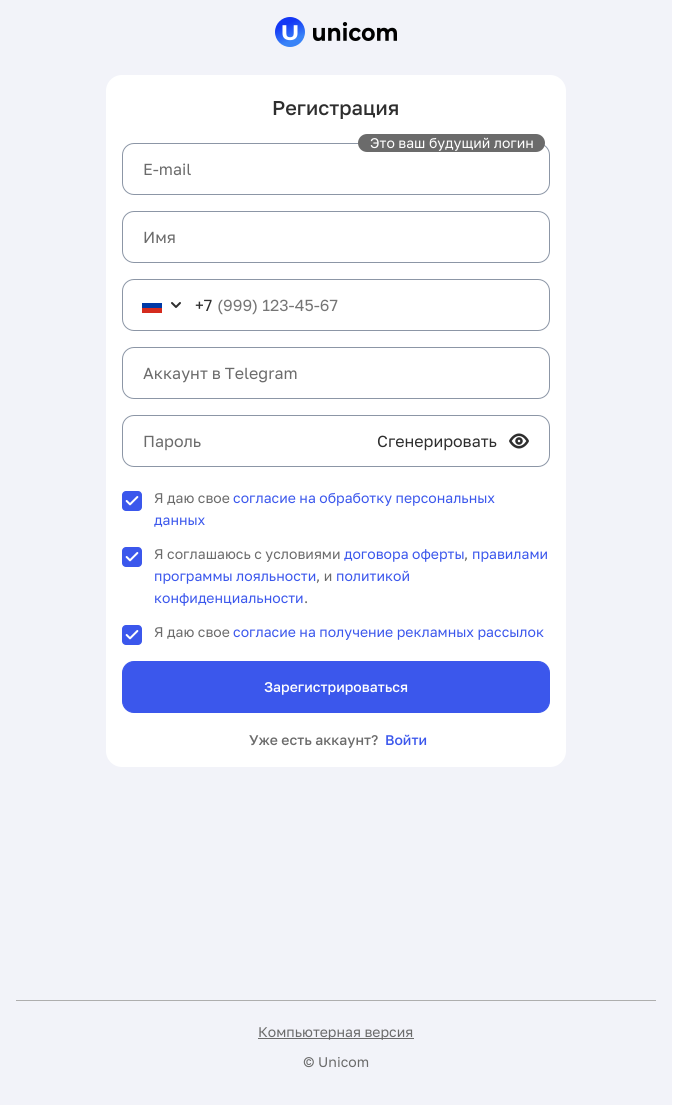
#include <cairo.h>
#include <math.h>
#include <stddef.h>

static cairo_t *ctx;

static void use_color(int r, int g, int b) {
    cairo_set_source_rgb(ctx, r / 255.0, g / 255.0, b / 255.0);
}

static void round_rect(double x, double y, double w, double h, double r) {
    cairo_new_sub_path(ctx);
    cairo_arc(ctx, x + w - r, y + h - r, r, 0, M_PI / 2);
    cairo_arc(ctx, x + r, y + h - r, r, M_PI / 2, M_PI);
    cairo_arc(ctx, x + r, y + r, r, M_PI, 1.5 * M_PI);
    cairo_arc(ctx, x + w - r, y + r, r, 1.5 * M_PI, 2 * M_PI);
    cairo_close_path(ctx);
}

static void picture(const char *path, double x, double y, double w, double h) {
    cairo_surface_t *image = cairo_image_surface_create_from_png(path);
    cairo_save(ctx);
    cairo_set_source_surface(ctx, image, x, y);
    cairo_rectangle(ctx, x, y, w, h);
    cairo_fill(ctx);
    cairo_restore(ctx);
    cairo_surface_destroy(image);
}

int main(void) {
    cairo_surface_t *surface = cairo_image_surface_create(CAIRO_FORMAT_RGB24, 687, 1105);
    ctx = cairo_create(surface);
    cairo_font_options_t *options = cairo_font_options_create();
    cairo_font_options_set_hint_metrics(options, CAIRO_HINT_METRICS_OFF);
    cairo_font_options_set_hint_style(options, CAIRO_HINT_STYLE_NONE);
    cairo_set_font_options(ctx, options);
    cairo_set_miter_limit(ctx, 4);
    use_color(255, 255, 255);
    cairo_paint(ctx);
    use_color(242, 243, 249);
    cairo_rectangle(ctx, 0, 0, 672, 1105);
    cairo_fill(ctx);
    picture("img1.png", 275, 17, 122, 30);
    use_color(255, 255, 255);
    round_rect(106, 75, 460, 692, 16);
    cairo_fill(ctx);
    cairo_select_font_face(ctx, "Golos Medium", CAIRO_FONT_SLANT_NORMAL, CAIRO_FONT_WEIGHT_NORMAL);
    cairo_set_font_size(ctx, 20);
    use_color(46, 46, 46);
    cairo_move_to(ctx, 272, 115);
    cairo_show_text(ctx, "Регистрация");
    round_rect(122.5, 143.5, 427, 51, 11.5);
    use_color(140, 150, 166);
    cairo_set_line_width(ctx, 1);
    cairo_stroke(ctx);
    use_color(107, 107, 107);
    round_rect(358, 134, 187, 18, 9);
    cairo_fill(ctx);
    cairo_select_font_face(ctx, "Golos", CAIRO_FONT_SLANT_NORMAL, CAIRO_FONT_WEIGHT_NORMAL);
    cairo_set_font_size(ctx, 14);
    use_color(255, 255, 255);
    cairo_move_to(ctx, 370, 148);
    cairo_show_text(ctx, "Это ваш будущий логин");
    cairo_set_font_size(ctx, 16);
    use_color(107, 107, 107);
    cairo_move_to(ctx, 143, 175);
    cairo_show_text(ctx, "E-mail");
    round_rect(122.5, 211.5, 427, 51, 11.5);
    use_color(140, 150, 166);
    cairo_stroke(ctx);
    use_color(107, 107, 107);
    cairo_move_to(ctx, 143, 243);
    cairo_show_text(ctx, "Имя");
    round_rect(122.5, 279.5, 427, 51, 11.5);
    use_color(140, 150, 166);
    cairo_stroke(ctx);
    use_color(0, 57, 166);
    cairo_rectangle(ctx, 142, 303, 20, 5);
    cairo_fill(ctx);
    use_color(213, 43, 30);
    cairo_rectangle(ctx, 142, 308, 20, 5);
    cairo_fill(ctx);
    picture("img2.png", 171, 302, 10, 6);
    use_color(46, 46, 46);
    cairo_move_to(ctx, 195, 311);
    cairo_show_text(ctx, "+7");
    use_color(117, 117, 117);
    cairo_move_to(ctx, 217, 311);
    cairo_show_text(ctx, "(999) 123-45-67");
    round_rect(122.5, 347.5, 427, 51, 11.5);
    use_color(140, 150, 166);
    cairo_stroke(ctx);
    use_color(107, 107, 107);
    cairo_move_to(ctx, 143, 379);
    cairo_show_text(ctx, "Аккаунт в Telegram");
    round_rect(122.5, 415.5, 427, 51, 11.5);
    use_color(140, 150, 166);
    cairo_stroke(ctx);
    use_color(107, 107, 107);
    cairo_move_to(ctx, 143, 447);
    cairo_show_text(ctx, "Пароль");
    use_color(46, 46, 46);
    cairo_move_to(ctx, 377, 447);
    cairo_show_text(ctx, "Сгенерировать");
    picture("img3.png", 509, 433, 20, 16);
    use_color(59, 87, 236);
    round_rect(122, 491, 20, 20, 4);
    cairo_fill(ctx);
    picture("img4.png", 125, 496, 14, 10);
    cairo_set_font_size(ctx, 14);
    use_color(107, 107, 107);
    cairo_move_to(ctx, 154, 503);
    cairo_show_text(ctx, "Я даю свое");
    use_color(59, 87, 236);
    cairo_move_to(ctx, 233, 503);
    cairo_show_text(ctx, "согласие на обработку персональных");
    cairo_move_to(ctx, 154, 525);
    cairo_show_text(ctx, "данных");
    round_rect(122, 547, 20, 20, 4);
    cairo_fill(ctx);
    picture("img4.png", 125, 552, 14, 10);
    use_color(107, 107, 107);
    cairo_move_to(ctx, 154, 559);
    cairo_show_text(ctx, "Я соглашаюсь с условиями");
    use_color(59, 87, 236);
    cairo_move_to(ctx, 344, 559);
    cairo_show_text(ctx, "договора оферты");
    use_color(107, 107, 107);
    cairo_move_to(ctx, 464, 559);
    cairo_show_text(ctx, ",");
    use_color(59, 87, 236);
    cairo_move_to(ctx, 472, 559);
    cairo_show_text(ctx, "правилами");
    cairo_move_to(ctx, 154, 581);
    cairo_show_text(ctx, "программы лояльности");
    use_color(107, 107, 107);
    cairo_move_to(ctx, 316, 581);
    cairo_show_text(ctx, ", и");
    use_color(59, 87, 236);
    cairo_move_to(ctx, 336, 581);
    cairo_show_text(ctx, "политикой");
    cairo_move_to(ctx, 154, 603);
    cairo_show_text(ctx, "конфиденциальности");
    use_color(107, 107, 107);
    cairo_move_to(ctx, 304, 603);
    cairo_show_text(ctx, ".");
    use_color(59, 87, 236);
    round_rect(122, 625, 20, 20, 4);
    cairo_fill(ctx);
    picture("img4.png", 125, 630, 14, 10);
    use_color(107, 107, 107);
    cairo_move_to(ctx, 154, 637);
    cairo_show_text(ctx, "Я даю свое");
    use_color(59, 87, 236);
    cairo_move_to(ctx, 233, 637);
    cairo_show_text(ctx, "согласие на получение рекламных рассылок");
    round_rect(122.5, 661.5, 427, 51, 11.5);
    cairo_fill_preserve(ctx);
    cairo_stroke(ctx);
    cairo_select_font_face(ctx, "Golos Medium", CAIRO_FONT_SLANT_NORMAL, CAIRO_FONT_WEIGHT_NORMAL);
    use_color(255, 255, 255);
    cairo_move_to(ctx, 264, 692);
    cairo_show_text(ctx, "Зарегистрироваться");
    use_color(107, 107, 107);
    cairo_move_to(ctx, 249, 745);
    cairo_show_text(ctx, "Уже есть аккаунт?");
    use_color(59, 87, 236);
    cairo_move_to(ctx, 385, 745);
    cairo_show_text(ctx, "Войти");
    use_color(174, 174, 174);
    cairo_rectangle(ctx, 16, 1000, 640, 1);
    cairo_fill(ctx);
    use_color(107, 107, 107);
    cairo_rectangle(ctx, 258, 1038, 156, 1);
    cairo_fill(ctx);
    cairo_select_font_face(ctx, "Golos", CAIRO_FONT_SLANT_NORMAL, CAIRO_FONT_WEIGHT_NORMAL);
    cairo_move_to(ctx, 258, 1037);
    cairo_show_text(ctx, "Компьютерная версия");
    cairo_move_to(ctx, 303, 1067);
    cairo_show_text(ctx, "© Unicom");
    cairo_surface_write_to_png(surface, "result.png");
    cairo_font_options_destroy(options);
    cairo_destroy(ctx);
    cairo_surface_destroy(surface);
    return 0;
}
